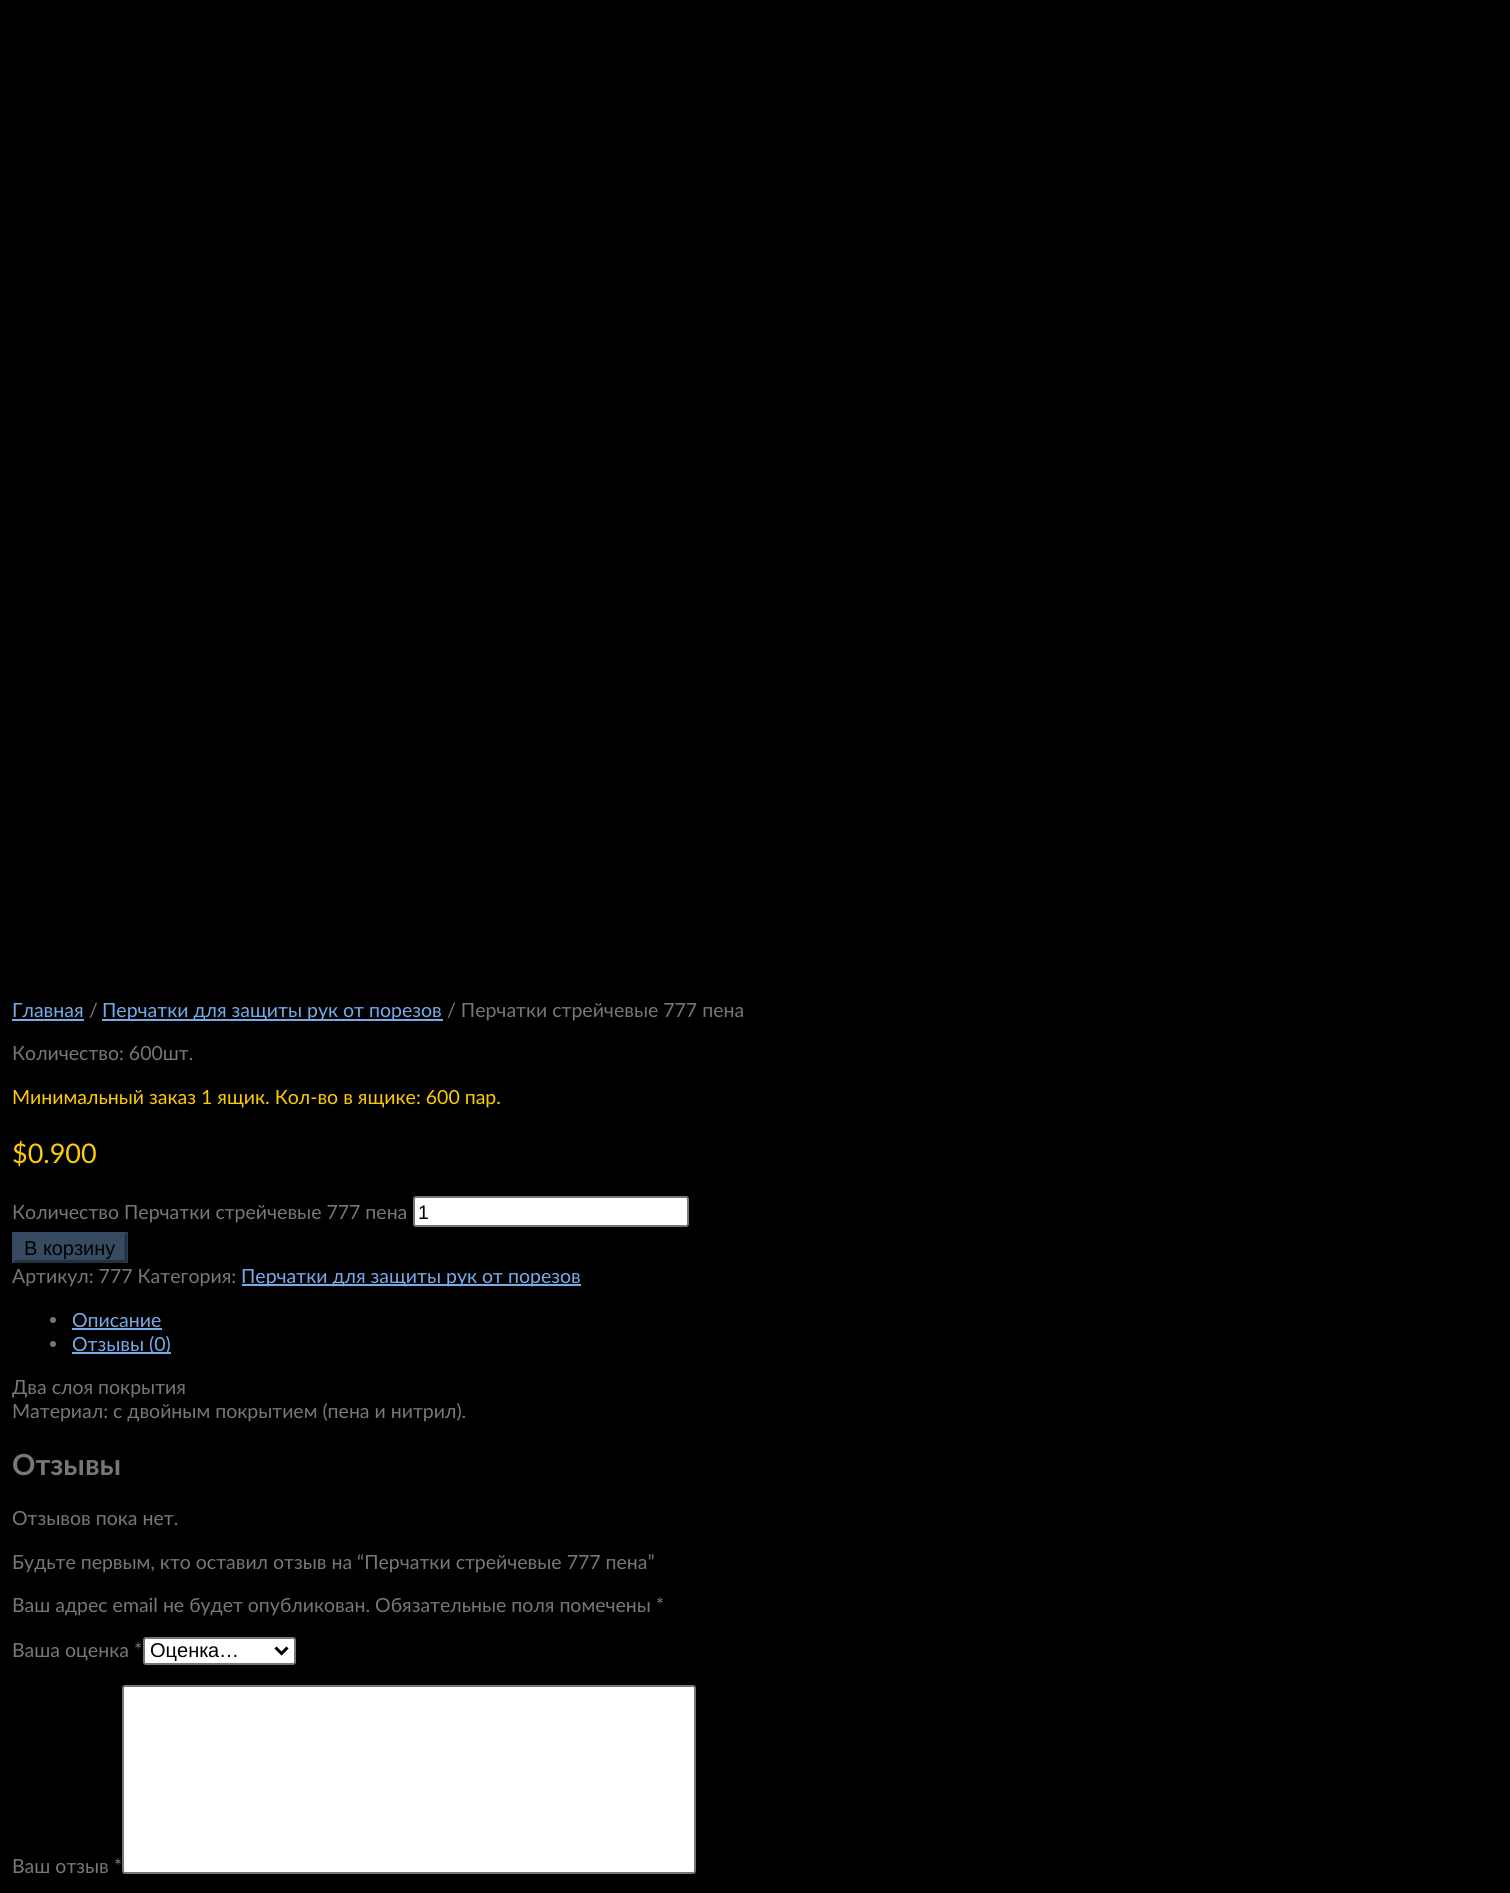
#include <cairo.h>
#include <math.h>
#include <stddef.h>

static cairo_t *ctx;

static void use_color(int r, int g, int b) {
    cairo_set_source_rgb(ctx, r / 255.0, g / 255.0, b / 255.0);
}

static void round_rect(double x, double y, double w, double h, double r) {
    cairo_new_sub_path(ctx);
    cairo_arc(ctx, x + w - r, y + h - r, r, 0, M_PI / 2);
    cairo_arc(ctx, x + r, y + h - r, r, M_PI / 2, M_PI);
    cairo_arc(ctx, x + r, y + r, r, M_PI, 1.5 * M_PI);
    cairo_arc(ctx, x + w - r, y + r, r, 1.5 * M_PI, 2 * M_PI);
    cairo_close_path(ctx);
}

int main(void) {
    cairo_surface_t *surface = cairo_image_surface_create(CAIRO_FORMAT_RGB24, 1510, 1893);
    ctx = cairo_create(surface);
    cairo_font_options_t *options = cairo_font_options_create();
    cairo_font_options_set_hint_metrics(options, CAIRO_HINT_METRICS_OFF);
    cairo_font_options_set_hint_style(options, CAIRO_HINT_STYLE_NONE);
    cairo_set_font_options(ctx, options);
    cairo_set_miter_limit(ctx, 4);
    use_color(0, 0, 0);
    cairo_paint(ctx);
    cairo_select_font_face(ctx, "Lato", CAIRO_FONT_SLANT_NORMAL, CAIRO_FONT_WEIGHT_NORMAL);
    cairo_set_font_size(ctx, 19.5);
    use_color(118, 171, 232);
    cairo_move_to(ctx, 12, 1017);
    cairo_show_text(ctx, "Главная");
    cairo_rectangle(ctx, 12, 1019, 72, 2);
    cairo_fill(ctx);
    use_color(119, 119, 119);
    cairo_move_to(ctx, 89, 1017);
    cairo_show_text(ctx, "/");
    use_color(118, 171, 232);
    cairo_rectangle(ctx, 102, 1019, 341, 2);
    cairo_fill(ctx);
    cairo_move_to(ctx, 102, 1017);
    cairo_show_text(ctx, "Перчатки для защиты рук от порезов");
    use_color(119, 119, 119);
    cairo_move_to(ctx, 447, 1017);
    cairo_show_text(ctx, "/ Перчатки стрейчевые 777 пена");
    cairo_move_to(ctx, 12, 1060);
    cairo_show_text(ctx, "Количество: 600шт.");
    use_color(255, 204, 0);
    cairo_move_to(ctx, 12, 1104);
    cairo_show_text(ctx, "Минимальный заказ 1 ящик. Кол-во в ящике: 600 пар.");
    cairo_set_font_size(ctx, 27);
    cairo_move_to(ctx, 12, 1163);
    cairo_show_text(ctx, "$0.900");
    cairo_set_font_size(ctx, 19.5);
    use_color(119, 119, 119);
    cairo_move_to(ctx, 12, 1219);
    cairo_show_text(ctx, "Количество Перчатки стрейчевые 777 пена");
    use_color(255, 255, 255);
    round_rect(414, 1197, 274, 29, 2);
    cairo_fill_preserve(ctx);
    use_color(118, 118, 118);
    cairo_stroke(ctx);
    cairo_select_font_face(ctx, "Liberation Sans", CAIRO_FONT_SLANT_NORMAL, CAIRO_FONT_WEIGHT_NORMAL);
    use_color(0, 0, 0);
    cairo_move_to(ctx, 418, 1219);
    cairo_show_text(ctx, "1");
    use_color(54, 74, 97);
    cairo_rectangle(ctx, 12, 1232, 116, 31);
    cairo_fill(ctx);
    use_color(36, 49, 65);
    cairo_new_path(ctx);
    cairo_move_to(ctx, 127.5, 1231.5);
    cairo_line_to(ctx, 127.5, 1263);
    cairo_line_to(ctx, 124.5, 1260);
    cairo_line_to(ctx, 124.5, 1234.5);
    cairo_close_path(ctx);
    cairo_fill(ctx);
    cairo_new_path(ctx);
    cairo_move_to(ctx, 128, 1263);
    cairo_line_to(ctx, 12, 1263);
    cairo_line_to(ctx, 15, 1260);
    cairo_line_to(ctx, 124, 1260);
    cairo_close_path(ctx);
    cairo_fill(ctx);
    use_color(54, 74, 97);
    cairo_new_path(ctx);
    cairo_move_to(ctx, 12, 1263);
    cairo_line_to(ctx, 12, 1231.5);
    cairo_line_to(ctx, 15, 1234.5);
    cairo_line_to(ctx, 15, 1260);
    cairo_close_path(ctx);
    cairo_fill(ctx);
    cairo_set_font_size(ctx, 20);
    use_color(0, 0, 0);
    cairo_move_to(ctx, 24, 1255);
    cairo_show_text(ctx, "В корзину");
    cairo_select_font_face(ctx, "Lato", CAIRO_FONT_SLANT_NORMAL, CAIRO_FONT_WEIGHT_NORMAL);
    cairo_set_font_size(ctx, 19.5);
    use_color(119, 119, 119);
    cairo_move_to(ctx, 12, 1283);
    cairo_show_text(ctx, "Артикул: 777 Категория:");
    use_color(118, 171, 232);
    cairo_rectangle(ctx, 242, 1284, 339, 2);
    cairo_fill(ctx);
    cairo_move_to(ctx, 241, 1283);
    cairo_show_text(ctx, "Перчатки для защиты рук от порезов");
    use_color(119, 119, 119);
    cairo_new_path(ctx);
    cairo_arc(ctx, 53, 1320, 3, 0, 2 * M_PI);
    cairo_fill(ctx);
    use_color(118, 171, 232);
    cairo_move_to(ctx, 72, 1327);
    cairo_show_text(ctx, "Описание");
    cairo_rectangle(ctx, 72, 1328, 90, 2);
    cairo_fill(ctx);
    use_color(119, 119, 119);
    cairo_arc(ctx, 53, 1344, 3, 0, 2 * M_PI);
    cairo_fill(ctx);
    use_color(118, 171, 232);
    cairo_rectangle(ctx, 72, 1352, 99, 2);
    cairo_fill(ctx);
    cairo_move_to(ctx, 72, 1351);
    cairo_show_text(ctx, "Отзывы (0)");
    use_color(119, 119, 119);
    cairo_move_to(ctx, 12, 1394);
    cairo_show_text(ctx, "Два слоя покрытия");
    cairo_move_to(ctx, 12, 1418);
    cairo_show_text(ctx, "Материал: с двойным покрытием (пена и нитрил).");
    cairo_select_font_face(ctx, "Lato", CAIRO_FONT_SLANT_NORMAL, CAIRO_FONT_WEIGHT_BOLD);
    cairo_set_font_size(ctx, 29);
    cairo_move_to(ctx, 12, 1475);
    cairo_show_text(ctx, "Отзывы");
    cairo_select_font_face(ctx, "Lato", CAIRO_FONT_SLANT_NORMAL, CAIRO_FONT_WEIGHT_NORMAL);
    cairo_set_font_size(ctx, 19.5);
    cairo_move_to(ctx, 12, 1525);
    cairo_show_text(ctx, "Отзывов пока нет.");
    cairo_move_to(ctx, 12, 1569);
    cairo_show_text(ctx, "Будьте первым, кто оставил отзыв на “Перчатки стрейчевые 777 пена”");
    cairo_move_to(ctx, 12, 1612);
    cairo_show_text(ctx, "Ваш адрес email не будет опубликован. Обязательные поля помечены *");
    cairo_move_to(ctx, 12, 1657);
    cairo_show_text(ctx, "Ваша оценка *");
    use_color(255, 255, 255);
    round_rect(144, 1638, 151, 26, 2);
    cairo_fill_preserve(ctx);
    use_color(118, 118, 118);
    cairo_stroke(ctx);
    cairo_new_path(ctx);
    cairo_move_to(ctx, 275.5, 1647.5);
    cairo_line_to(ctx, 281.5, 1653.5);
    cairo_line_to(ctx, 287.5, 1647.5);
    use_color(0, 0, 0);
    cairo_set_line_width(ctx, 3);
    cairo_stroke(ctx);
    cairo_select_font_face(ctx, "Liberation Sans", CAIRO_FONT_SLANT_NORMAL, CAIRO_FONT_WEIGHT_NORMAL);
    cairo_set_font_size(ctx, 20);
    cairo_move_to(ctx, 150, 1657);
    cairo_show_text(ctx, "Оценка…");
    cairo_select_font_face(ctx, "Lato", CAIRO_FONT_SLANT_NORMAL, CAIRO_FONT_WEIGHT_NORMAL);
    cairo_set_font_size(ctx, 19.5);
    use_color(119, 119, 119);
    cairo_move_to(ctx, 12, 1873);
    cairo_show_text(ctx, "Ваш отзыв *");
    use_color(255, 255, 255);
    round_rect(123, 1686, 572, 187, 2);
    cairo_fill_preserve(ctx);
    use_color(118, 118, 118);
    cairo_set_line_width(ctx, 2);
    cairo_stroke(ctx);
    cairo_surface_write_to_png(surface, "result.png");
    cairo_font_options_destroy(options);
    cairo_destroy(ctx);
    cairo_surface_destroy(surface);
    return 0;
}
